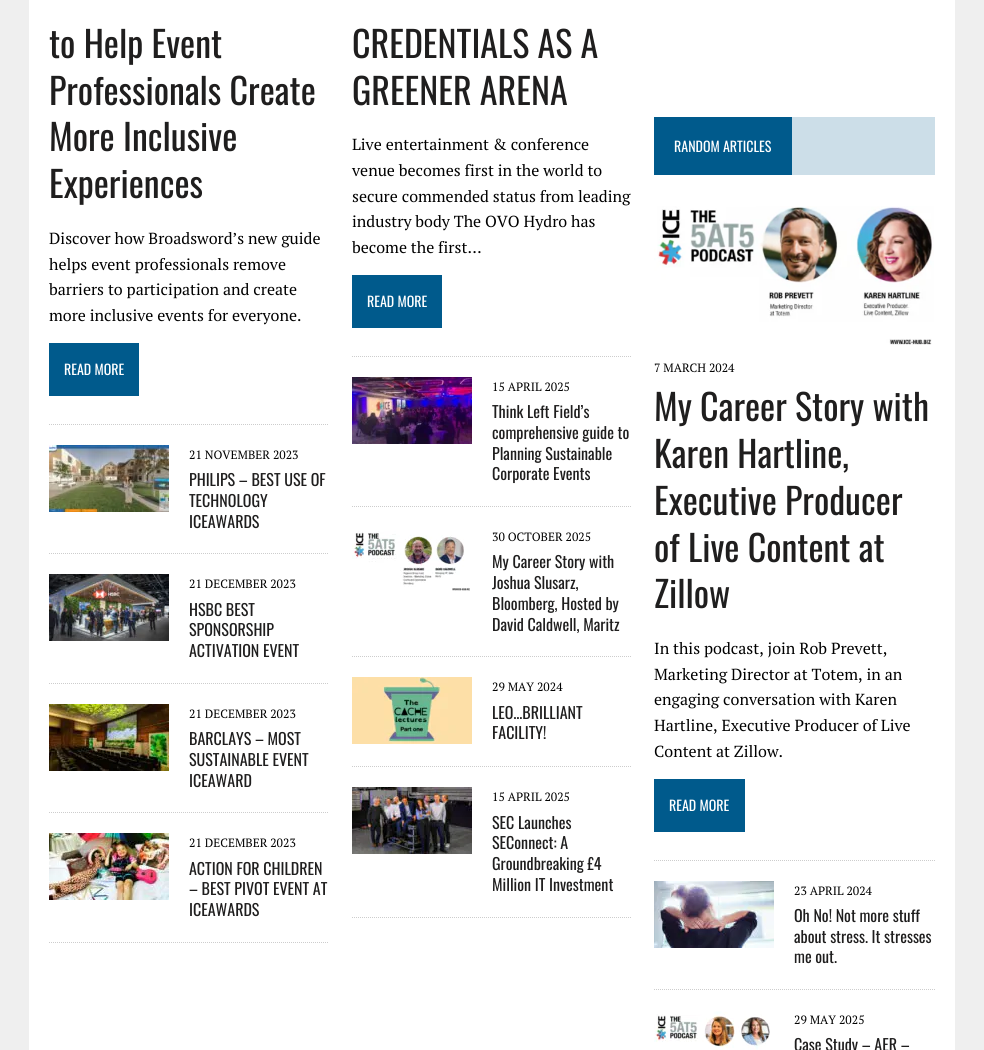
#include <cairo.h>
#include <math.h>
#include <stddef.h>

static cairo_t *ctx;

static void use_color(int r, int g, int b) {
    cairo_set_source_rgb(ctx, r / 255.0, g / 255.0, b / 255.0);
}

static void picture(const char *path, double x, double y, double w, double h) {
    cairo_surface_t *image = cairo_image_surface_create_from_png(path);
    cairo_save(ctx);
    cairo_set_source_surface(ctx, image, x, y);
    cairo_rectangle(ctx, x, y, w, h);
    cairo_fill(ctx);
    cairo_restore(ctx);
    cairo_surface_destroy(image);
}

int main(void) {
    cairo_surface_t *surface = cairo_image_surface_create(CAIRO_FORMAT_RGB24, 984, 1050);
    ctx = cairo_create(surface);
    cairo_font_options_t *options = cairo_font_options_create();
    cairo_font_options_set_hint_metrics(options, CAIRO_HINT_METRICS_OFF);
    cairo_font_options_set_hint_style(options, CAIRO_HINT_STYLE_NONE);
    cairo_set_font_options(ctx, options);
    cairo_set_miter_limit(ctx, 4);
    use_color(239, 239, 239);
    cairo_paint(ctx);
    use_color(255, 255, 255);
    cairo_rectangle(ctx, 29, 0, 926, 1050);
    cairo_fill(ctx);
    cairo_select_font_face(ctx, "Oswald", CAIRO_FONT_SLANT_NORMAL, CAIRO_FONT_WEIGHT_NORMAL);
    cairo_set_font_size(ctx, 36);
    use_color(31, 30, 30);
    cairo_move_to(ctx, 49, 58);
    cairo_show_text(ctx, "to Help Event");
    cairo_move_to(ctx, 49, 105);
    cairo_show_text(ctx, "Professionals Create");
    cairo_move_to(ctx, 49, 151);
    cairo_show_text(ctx, "More Inclusive");
    cairo_move_to(ctx, 49, 198);
    cairo_show_text(ctx, "Experiences");
    cairo_select_font_face(ctx, "PT Serif", CAIRO_FONT_SLANT_NORMAL, CAIRO_FONT_WEIGHT_NORMAL);
    cairo_set_font_size(ctx, 16);
    use_color(0, 0, 0);
    cairo_move_to(ctx, 49, 244);
    cairo_show_text(ctx, "Discover how Broadsword’s new guide");
    cairo_move_to(ctx, 49, 270);
    cairo_show_text(ctx, "helps event professionals remove");
    cairo_move_to(ctx, 49, 295);
    cairo_show_text(ctx, "barriers to participation and create");
    cairo_move_to(ctx, 49, 321);
    cairo_show_text(ctx, "more inclusive events for everyone.");
    use_color(0, 90, 140);
    cairo_rectangle(ctx, 49, 343, 90, 53);
    cairo_fill(ctx);
    cairo_select_font_face(ctx, "Oswald", CAIRO_FONT_SLANT_NORMAL, CAIRO_FONT_WEIGHT_NORMAL);
    cairo_set_font_size(ctx, 14);
    use_color(255, 255, 255);
    cairo_move_to(ctx, 64, 375);
    cairo_show_text(ctx, "READ MORE");
    cairo_new_path(ctx);
    cairo_move_to(ctx, 49, 424.5);
    cairo_line_to(ctx, 329, 424.5);
    use_color(205, 205, 205);
    cairo_set_line_width(ctx, 1);
    cairo_set_dash(ctx, (double[]){1, 1}, 2, 0);
    cairo_stroke(ctx);
    picture("img1.png", 49, 445, 120, 67);
    cairo_select_font_face(ctx, "PT Serif", CAIRO_FONT_SLANT_NORMAL, CAIRO_FONT_WEIGHT_NORMAL);
    cairo_set_font_size(ctx, 12);
    use_color(0, 0, 0);
    cairo_move_to(ctx, 189, 459);
    cairo_show_text(ctx, "21 NOVEMBER 2023");
    cairo_select_font_face(ctx, "Oswald", CAIRO_FONT_SLANT_NORMAL, CAIRO_FONT_WEIGHT_NORMAL);
    cairo_set_font_size(ctx, 16);
    use_color(31, 30, 30);
    cairo_move_to(ctx, 189, 486);
    cairo_show_text(ctx, "PHILIPS – BEST USE OF");
    cairo_move_to(ctx, 189, 507);
    cairo_show_text(ctx, "TECHNOLOGY");
    cairo_move_to(ctx, 189, 528);
    cairo_show_text(ctx, "ICEAWARDS");
    cairo_new_path(ctx);
    cairo_move_to(ctx, 49, 553.5);
    cairo_line_to(ctx, 329, 553.5);
    use_color(205, 205, 205);
    cairo_stroke(ctx);
    picture("img2.png", 49, 574, 120, 67);
    cairo_select_font_face(ctx, "PT Serif", CAIRO_FONT_SLANT_NORMAL, CAIRO_FONT_WEIGHT_NORMAL);
    cairo_set_font_size(ctx, 12);
    use_color(0, 0, 0);
    cairo_move_to(ctx, 189, 588);
    cairo_show_text(ctx, "21 DECEMBER 2023");
    cairo_select_font_face(ctx, "Oswald", CAIRO_FONT_SLANT_NORMAL, CAIRO_FONT_WEIGHT_NORMAL);
    cairo_set_font_size(ctx, 16);
    use_color(31, 30, 30);
    cairo_move_to(ctx, 189, 616);
    cairo_show_text(ctx, "HSBC BEST");
    cairo_move_to(ctx, 189, 636);
    cairo_show_text(ctx, "SPONSORSHIP");
    cairo_move_to(ctx, 189, 657);
    cairo_show_text(ctx, "ACTIVATION EVENT");
    cairo_new_path(ctx);
    cairo_move_to(ctx, 49, 683.5);
    cairo_line_to(ctx, 329, 683.5);
    use_color(205, 205, 205);
    cairo_stroke(ctx);
    picture("img3.png", 49, 704, 120, 67);
    cairo_select_font_face(ctx, "PT Serif", CAIRO_FONT_SLANT_NORMAL, CAIRO_FONT_WEIGHT_NORMAL);
    cairo_set_font_size(ctx, 12);
    use_color(0, 0, 0);
    cairo_move_to(ctx, 189, 718);
    cairo_show_text(ctx, "21 DECEMBER 2023");
    cairo_select_font_face(ctx, "Oswald", CAIRO_FONT_SLANT_NORMAL, CAIRO_FONT_WEIGHT_NORMAL);
    cairo_set_font_size(ctx, 16);
    use_color(31, 30, 30);
    cairo_move_to(ctx, 189, 745);
    cairo_show_text(ctx, "BARCLAYS – MOST");
    cairo_move_to(ctx, 189, 766);
    cairo_show_text(ctx, "SUSTAINABLE EVENT");
    cairo_move_to(ctx, 189, 787);
    cairo_show_text(ctx, "ICEAWARD");
    cairo_new_path(ctx);
    cairo_move_to(ctx, 49, 812.5);
    cairo_line_to(ctx, 329, 812.5);
    use_color(205, 205, 205);
    cairo_stroke(ctx);
    picture("img4.png", 49, 833, 120, 67);
    cairo_select_font_face(ctx, "PT Serif", CAIRO_FONT_SLANT_NORMAL, CAIRO_FONT_WEIGHT_NORMAL);
    cairo_set_font_size(ctx, 12);
    use_color(0, 0, 0);
    cairo_move_to(ctx, 189, 847);
    cairo_show_text(ctx, "21 DECEMBER 2023");
    cairo_select_font_face(ctx, "Oswald", CAIRO_FONT_SLANT_NORMAL, CAIRO_FONT_WEIGHT_NORMAL);
    cairo_set_font_size(ctx, 16);
    use_color(31, 30, 30);
    cairo_move_to(ctx, 189, 875);
    cairo_show_text(ctx, "ACTION FOR CHILDREN");
    cairo_move_to(ctx, 189, 895);
    cairo_show_text(ctx, "– BEST PIVOT EVENT AT");
    cairo_move_to(ctx, 189, 916);
    cairo_show_text(ctx, "ICEAWARDS");
    cairo_new_path(ctx);
    cairo_move_to(ctx, 49, 942.5);
    cairo_line_to(ctx, 329, 942.5);
    use_color(205, 205, 205);
    cairo_stroke(ctx);
    cairo_set_font_size(ctx, 36);
    use_color(31, 30, 30);
    cairo_move_to(ctx, 352, 58);
    cairo_show_text(ctx, "CREDENTIALS AS A");
    cairo_move_to(ctx, 352, 105);
    cairo_show_text(ctx, "GREENER ARENA");
    cairo_select_font_face(ctx, "PT Serif", CAIRO_FONT_SLANT_NORMAL, CAIRO_FONT_WEIGHT_NORMAL);
    cairo_set_font_size(ctx, 16);
    use_color(0, 0, 0);
    cairo_move_to(ctx, 352, 150);
    cairo_show_text(ctx, "Live entertainment & conference");
    cairo_move_to(ctx, 352, 176);
    cairo_show_text(ctx, "venue becomes first in the world to");
    cairo_move_to(ctx, 352, 202);
    cairo_show_text(ctx, "secure commended status from leading");
    cairo_move_to(ctx, 352, 227);
    cairo_show_text(ctx, "industry body The OVO Hydro has");
    cairo_move_to(ctx, 352, 253);
    cairo_show_text(ctx, "become the first…");
    use_color(0, 90, 140);
    cairo_rectangle(ctx, 352, 275, 90, 53);
    cairo_fill(ctx);
    cairo_select_font_face(ctx, "Oswald", CAIRO_FONT_SLANT_NORMAL, CAIRO_FONT_WEIGHT_NORMAL);
    cairo_set_font_size(ctx, 14);
    use_color(255, 255, 255);
    cairo_move_to(ctx, 367, 307);
    cairo_show_text(ctx, "READ MORE");
    cairo_new_path(ctx);
    cairo_move_to(ctx, 352, 356.5);
    cairo_line_to(ctx, 632, 356.5);
    use_color(205, 205, 205);
    cairo_stroke(ctx);
    picture("img5.png", 352, 377, 120, 67);
    cairo_select_font_face(ctx, "PT Serif", CAIRO_FONT_SLANT_NORMAL, CAIRO_FONT_WEIGHT_NORMAL);
    cairo_set_font_size(ctx, 12);
    use_color(0, 0, 0);
    cairo_move_to(ctx, 492, 391);
    cairo_show_text(ctx, "15 APRIL 2025");
    cairo_select_font_face(ctx, "Oswald", CAIRO_FONT_SLANT_NORMAL, CAIRO_FONT_WEIGHT_NORMAL);
    cairo_set_font_size(ctx, 16);
    use_color(31, 30, 30);
    cairo_move_to(ctx, 492, 418);
    cairo_show_text(ctx, "Think Left Field’s");
    cairo_move_to(ctx, 492, 439);
    cairo_show_text(ctx, "comprehensive guide to");
    cairo_move_to(ctx, 492, 460);
    cairo_show_text(ctx, "Planning Sustainable");
    cairo_move_to(ctx, 492, 480);
    cairo_show_text(ctx, "Corporate Events");
    cairo_new_path(ctx);
    cairo_move_to(ctx, 352, 506.5);
    cairo_line_to(ctx, 632, 506.5);
    use_color(205, 205, 205);
    cairo_stroke(ctx);
    picture("img6.png", 352, 531, 118, 60);
    cairo_select_font_face(ctx, "PT Serif", CAIRO_FONT_SLANT_NORMAL, CAIRO_FONT_WEIGHT_NORMAL);
    cairo_set_font_size(ctx, 12);
    use_color(0, 0, 0);
    cairo_move_to(ctx, 492, 541);
    cairo_show_text(ctx, "30 OCTOBER 2025");
    cairo_select_font_face(ctx, "Oswald", CAIRO_FONT_SLANT_NORMAL, CAIRO_FONT_WEIGHT_NORMAL);
    cairo_set_font_size(ctx, 16);
    use_color(31, 30, 30);
    cairo_move_to(ctx, 492, 568);
    cairo_show_text(ctx, "My Career Story with");
    cairo_move_to(ctx, 492, 589);
    cairo_show_text(ctx, "Joshua Slusarz,");
    cairo_move_to(ctx, 492, 610);
    cairo_show_text(ctx, "Bloomberg, Hosted by");
    cairo_move_to(ctx, 492, 631);
    cairo_show_text(ctx, "David Caldwell, Maritz");
    cairo_new_path(ctx);
    cairo_move_to(ctx, 352, 656.5);
    cairo_line_to(ctx, 632, 656.5);
    use_color(205, 205, 205);
    cairo_stroke(ctx);
    picture("img7.png", 352, 677, 120, 67);
    cairo_select_font_face(ctx, "PT Serif", CAIRO_FONT_SLANT_NORMAL, CAIRO_FONT_WEIGHT_NORMAL);
    cairo_set_font_size(ctx, 12);
    use_color(0, 0, 0);
    cairo_move_to(ctx, 492, 691);
    cairo_show_text(ctx, "29 MAY 2024");
    cairo_select_font_face(ctx, "Oswald", CAIRO_FONT_SLANT_NORMAL, CAIRO_FONT_WEIGHT_NORMAL);
    cairo_set_font_size(ctx, 16);
    use_color(31, 30, 30);
    cairo_move_to(ctx, 492, 719);
    cairo_show_text(ctx, "LEO…BRILLIANT");
    cairo_move_to(ctx, 492, 739);
    cairo_show_text(ctx, "FACILITY!");
    cairo_new_path(ctx);
    cairo_move_to(ctx, 352, 766.5);
    cairo_line_to(ctx, 632, 766.5);
    use_color(205, 205, 205);
    cairo_stroke(ctx);
    picture("img8.png", 352, 787, 120, 67);
    cairo_select_font_face(ctx, "PT Serif", CAIRO_FONT_SLANT_NORMAL, CAIRO_FONT_WEIGHT_NORMAL);
    cairo_set_font_size(ctx, 12);
    use_color(0, 0, 0);
    cairo_move_to(ctx, 492, 801);
    cairo_show_text(ctx, "15 APRIL 2025");
    cairo_select_font_face(ctx, "Oswald", CAIRO_FONT_SLANT_NORMAL, CAIRO_FONT_WEIGHT_NORMAL);
    cairo_set_font_size(ctx, 16);
    use_color(31, 30, 30);
    cairo_move_to(ctx, 492, 829);
    cairo_show_text(ctx, "SEC Launches");
    cairo_move_to(ctx, 492, 849);
    cairo_show_text(ctx, "SEConnect: A");
    cairo_move_to(ctx, 492, 870);
    cairo_show_text(ctx, "Groundbreaking £4");
    cairo_move_to(ctx, 492, 891);
    cairo_show_text(ctx, "Million IT Investment");
    cairo_new_path(ctx);
    cairo_move_to(ctx, 352, 917.5);
    cairo_line_to(ctx, 632, 917.5);
    use_color(205, 205, 205);
    cairo_stroke(ctx);
    use_color(204, 222, 232);
    cairo_rectangle(ctx, 792, 117, 143, 58);
    cairo_fill(ctx);
    use_color(0, 90, 140);
    cairo_rectangle(ctx, 654, 117, 138, 58);
    cairo_fill(ctx);
    cairo_set_font_size(ctx, 14);
    use_color(255, 255, 255);
    cairo_move_to(ctx, 674, 152);
    cairo_show_text(ctx, "RANDOM ARTICLES");
    picture("img9.png", 654, 206, 280, 139);
    cairo_select_font_face(ctx, "PT Serif", CAIRO_FONT_SLANT_NORMAL, CAIRO_FONT_WEIGHT_NORMAL);
    cairo_set_font_size(ctx, 12);
    use_color(0, 0, 0);
    cairo_move_to(ctx, 654, 372);
    cairo_show_text(ctx, "7 MARCH 2024");
    cairo_select_font_face(ctx, "Oswald", CAIRO_FONT_SLANT_NORMAL, CAIRO_FONT_WEIGHT_NORMAL);
    cairo_set_font_size(ctx, 36);
    use_color(31, 30, 30);
    cairo_move_to(ctx, 654, 421);
    cairo_show_text(ctx, "My Career Story with");
    cairo_move_to(ctx, 654, 468);
    cairo_show_text(ctx, "Karen Hartline,");
    cairo_move_to(ctx, 654, 515);
    cairo_show_text(ctx, "Executive Producer");
    cairo_move_to(ctx, 654, 562);
    cairo_show_text(ctx, "of Live Content at");
    cairo_move_to(ctx, 654, 608);
    cairo_show_text(ctx, "Zillow");
    cairo_select_font_face(ctx, "PT Serif", CAIRO_FONT_SLANT_NORMAL, CAIRO_FONT_WEIGHT_NORMAL);
    cairo_set_font_size(ctx, 16);
    use_color(0, 0, 0);
    cairo_move_to(ctx, 654, 654);
    cairo_show_text(ctx, "In this podcast, join Rob Prevett,");
    cairo_move_to(ctx, 654, 680);
    cairo_show_text(ctx, "Marketing Director at Totem, in an");
    cairo_move_to(ctx, 654, 705);
    cairo_show_text(ctx, "engaging conversation with Karen");
    cairo_move_to(ctx, 654, 731);
    cairo_show_text(ctx, "Hartline, Executive Producer of Live");
    cairo_move_to(ctx, 654, 757);
    cairo_show_text(ctx, "Content at Zillow.");
    use_color(0, 90, 140);
    cairo_rectangle(ctx, 654, 779, 91, 53);
    cairo_fill(ctx);
    cairo_select_font_face(ctx, "Oswald", CAIRO_FONT_SLANT_NORMAL, CAIRO_FONT_WEIGHT_NORMAL);
    cairo_set_font_size(ctx, 14);
    use_color(255, 255, 255);
    cairo_move_to(ctx, 669, 811);
    cairo_show_text(ctx, "READ MORE");
    cairo_new_path(ctx);
    cairo_move_to(ctx, 654, 860.5);
    cairo_line_to(ctx, 935, 860.5);
    use_color(205, 205, 205);
    cairo_stroke(ctx);
    picture("img10.png", 654, 881, 120, 67);
    cairo_select_font_face(ctx, "PT Serif", CAIRO_FONT_SLANT_NORMAL, CAIRO_FONT_WEIGHT_NORMAL);
    cairo_set_font_size(ctx, 12);
    use_color(0, 0, 0);
    cairo_move_to(ctx, 794, 895);
    cairo_show_text(ctx, "23 APRIL 2024");
    cairo_select_font_face(ctx, "Oswald", CAIRO_FONT_SLANT_NORMAL, CAIRO_FONT_WEIGHT_NORMAL);
    cairo_set_font_size(ctx, 16);
    use_color(31, 30, 30);
    cairo_move_to(ctx, 794, 922);
    cairo_show_text(ctx, "Oh No! Not more stuff");
    cairo_move_to(ctx, 794, 943);
    cairo_show_text(ctx, "about stress. It stresses");
    cairo_move_to(ctx, 794, 963);
    cairo_show_text(ctx, "me out.");
    cairo_new_path(ctx);
    cairo_move_to(ctx, 654, 989.5);
    cairo_line_to(ctx, 935, 989.5);
    use_color(205, 205, 205);
    cairo_stroke(ctx);
    picture("img11.png", 654, 1011, 116, 39);
    cairo_select_font_face(ctx, "PT Serif", CAIRO_FONT_SLANT_NORMAL, CAIRO_FONT_WEIGHT_NORMAL);
    cairo_set_font_size(ctx, 12);
    use_color(0, 0, 0);
    cairo_move_to(ctx, 794, 1024);
    cairo_show_text(ctx, "29 MAY 2025");
    cairo_select_font_face(ctx, "Oswald", CAIRO_FONT_SLANT_NORMAL, CAIRO_FONT_WEIGHT_NORMAL);
    cairo_set_font_size(ctx, 16);
    use_color(31, 30, 30);
    cairo_move_to(ctx, 794, 1051);
    cairo_show_text(ctx, "Case Study – AER –");
    cairo_surface_write_to_png(surface, "result.png");
    cairo_font_options_destroy(options);
    cairo_destroy(ctx);
    cairo_surface_destroy(surface);
    return 0;
}
